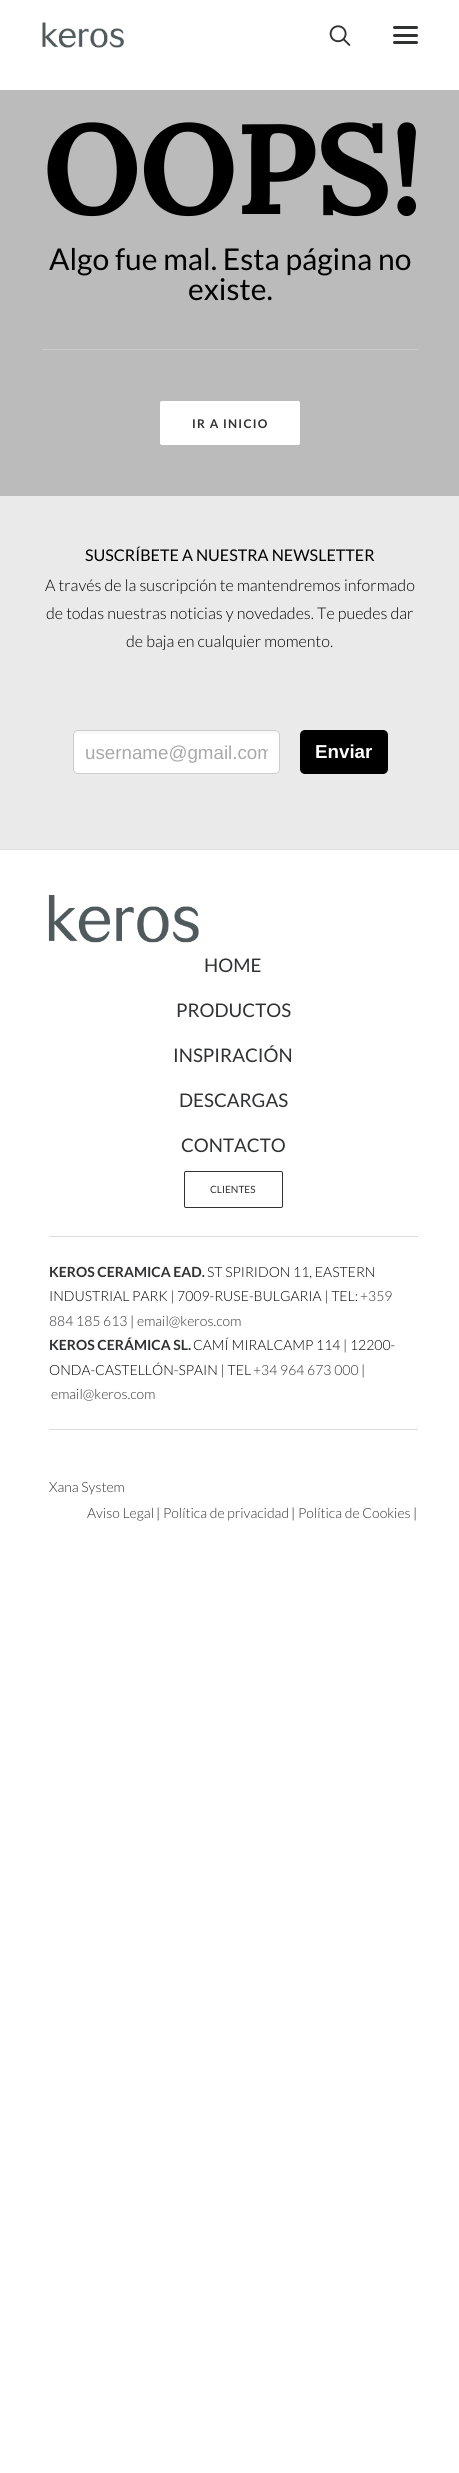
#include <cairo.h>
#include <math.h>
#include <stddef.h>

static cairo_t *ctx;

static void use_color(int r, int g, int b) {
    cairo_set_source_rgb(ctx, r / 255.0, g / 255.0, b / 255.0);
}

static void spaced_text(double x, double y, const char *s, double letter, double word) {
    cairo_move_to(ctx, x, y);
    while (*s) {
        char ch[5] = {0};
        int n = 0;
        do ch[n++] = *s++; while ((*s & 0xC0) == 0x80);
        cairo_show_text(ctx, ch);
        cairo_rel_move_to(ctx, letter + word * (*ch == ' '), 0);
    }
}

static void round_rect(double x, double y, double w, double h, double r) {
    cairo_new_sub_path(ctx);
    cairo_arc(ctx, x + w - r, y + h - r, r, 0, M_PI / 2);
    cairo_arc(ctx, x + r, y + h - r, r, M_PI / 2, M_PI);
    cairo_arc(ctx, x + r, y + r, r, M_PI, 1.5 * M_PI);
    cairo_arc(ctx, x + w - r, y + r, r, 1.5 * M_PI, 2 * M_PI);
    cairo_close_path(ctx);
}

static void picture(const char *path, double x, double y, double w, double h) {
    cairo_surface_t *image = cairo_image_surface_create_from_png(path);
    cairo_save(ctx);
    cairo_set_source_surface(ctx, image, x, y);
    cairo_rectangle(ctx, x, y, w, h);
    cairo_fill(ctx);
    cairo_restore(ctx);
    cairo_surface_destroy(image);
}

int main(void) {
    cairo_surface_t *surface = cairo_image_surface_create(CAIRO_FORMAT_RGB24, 459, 2473);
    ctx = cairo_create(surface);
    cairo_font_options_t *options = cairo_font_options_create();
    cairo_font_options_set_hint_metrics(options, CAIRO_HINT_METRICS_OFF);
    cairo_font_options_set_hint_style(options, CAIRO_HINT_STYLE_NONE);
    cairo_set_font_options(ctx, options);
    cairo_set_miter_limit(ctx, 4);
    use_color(255, 255, 255);
    cairo_paint(ctx);
    picture("img1.png", 42, 22, 82, 26);
    picture("img2.png", 329, 25, 22, 21);
    use_color(48, 49, 51);
    round_rect(393, 34, 25, 3, 1.5);
    cairo_fill(ctx);
    round_rect(393, 26, 25, 3, 1.5);
    cairo_fill(ctx);
    round_rect(393, 41, 25, 3, 1.5);
    cairo_fill(ctx);
    use_color(187, 187, 187);
    cairo_rectangle(ctx, 0, 90, 459, 406);
    cairo_fill(ctx);
    cairo_select_font_face(ctx, "Lora", CAIRO_FONT_SLANT_NORMAL, CAIRO_FONT_WEIGHT_BOLD);
    cairo_set_font_size(ctx, 128);
    use_color(0, 0, 0);
    spaced_text(43, 214, "OOPS!", -2, 0);
    cairo_select_font_face(ctx, "Lato", CAIRO_FONT_SLANT_NORMAL, CAIRO_FONT_WEIGHT_NORMAL);
    cairo_set_font_size(ctx, 30);
    cairo_move_to(ctx, 49, 270);
    cairo_show_text(ctx, "Algo fue mal. Esta página no");
    cairo_move_to(ctx, 188, 300);
    cairo_show_text(ctx, "existe.");
    use_color(204, 204, 204);
    cairo_rectangle(ctx, 43, 349, 375, 1);
    cairo_fill(ctx);
    use_color(255, 255, 255);
    round_rect(160.5, 401.5, 139, 43, 1.5);
    cairo_fill_preserve(ctx);
    cairo_set_line_width(ctx, 1);
    cairo_stroke(ctx);
    cairo_select_font_face(ctx, "Lato", CAIRO_FONT_SLANT_NORMAL, CAIRO_FONT_WEIGHT_BOLD);
    cairo_set_font_size(ctx, 12);
    use_color(48, 49, 51);
    spaced_text(192, 428, "IR A INICIO", 1.25, 0);
    use_color(234, 234, 234);
    cairo_rectangle(ctx, 0, 496, 459, 353);
    cairo_fill(ctx);
    cairo_select_font_face(ctx, "Lato", CAIRO_FONT_SLANT_NORMAL, CAIRO_FONT_WEIGHT_NORMAL);
    cairo_set_font_size(ctx, 16.1);
    use_color(0, 0, 0);
    cairo_move_to(ctx, 85, 561);
    cairo_show_text(ctx, "SUSCRÍBETE A NUESTRA NEWSLETTER");
    cairo_select_font_face(ctx, "Lato Light", CAIRO_FONT_SLANT_NORMAL, CAIRO_FONT_WEIGHT_NORMAL);
    cairo_move_to(ctx, 45, 591);
    cairo_show_text(ctx, "A través de la suscripción te mantendremos informado");
    cairo_move_to(ctx, 46, 619);
    cairo_show_text(ctx, "de todas nuestras noticias y novedades. Te puedes dar");
    cairo_move_to(ctx, 126, 647);
    cairo_show_text(ctx, "de baja en cualquier momento.");
    use_color(255, 255, 255);
    round_rect(73, 730, 207, 44, 5);
    cairo_fill(ctx);
    use_color(249, 249, 249);
    cairo_new_path(ctx);
    cairo_move_to(ctx, 78, 734);
    cairo_line_to(ctx, 275, 734);
    cairo_curve_to(ctx, 277, 734, 279, 735, 279, 738);
    cairo_line_to(ctx, 279, 735);
    cairo_curve_to(ctx, 279, 733, 277, 731, 275, 731);
    cairo_line_to(ctx, 78, 731);
    cairo_curve_to(ctx, 76, 731, 74, 733, 74, 735);
    cairo_line_to(ctx, 74, 738);
    cairo_curve_to(ctx, 74, 735, 75, 734, 78, 734);
    cairo_close_path(ctx);
    cairo_fill(ctx);
    round_rect(73.5, 730.5, 206, 43, 4.5);
    use_color(204, 204, 204);
    cairo_stroke(ctx);
    cairo_save(ctx);
    cairo_rectangle(ctx, 85, 741, 183, 22);
    cairo_clip(ctx);
    cairo_select_font_face(ctx, "Liberation Sans", CAIRO_FONT_SLANT_NORMAL, CAIRO_FONT_WEIGHT_NORMAL);
    cairo_set_font_size(ctx, 18.75);
    use_color(169, 169, 169);
    cairo_move_to(ctx, 85, 759);
    cairo_show_text(ctx, "username@gmail.com");
    cairo_restore(ctx);
    use_color(0, 0, 0);
    round_rect(300, 730, 88, 44, 5);
    cairo_fill(ctx);
    cairo_select_font_face(ctx, "Liberation Sans", CAIRO_FONT_SLANT_NORMAL, CAIRO_FONT_WEIGHT_BOLD);
    cairo_set_font_size(ctx, 18.75);
    use_color(255, 255, 255);
    cairo_move_to(ctx, 315, 758);
    cairo_show_text(ctx, "Enviar");
    use_color(221, 221, 221);
    cairo_rectangle(ctx, 0, 849, 459, 1);
    cairo_fill(ctx);
    picture("img3.png", 48, 895, 151, 48);
    cairo_select_font_face(ctx, "Lato", CAIRO_FONT_SLANT_NORMAL, CAIRO_FONT_WEIGHT_NORMAL);
    use_color(48, 49, 51);
    cairo_move_to(ctx, 204, 972);
    cairo_show_text(ctx, "HOME");
    cairo_move_to(ctx, 176, 1017);
    cairo_show_text(ctx, "PRODUCTOS");
    cairo_move_to(ctx, 173, 1062);
    cairo_show_text(ctx, "INSPIRACIÓN");
    cairo_move_to(ctx, 179, 1107);
    cairo_show_text(ctx, "DESCARGAS");
    cairo_move_to(ctx, 181, 1152);
    cairo_show_text(ctx, "CONTACTO");
    round_rect(184.5, 1171.5, 98, 36, 1.5);
    cairo_stroke(ctx);
    cairo_set_font_size(ctx, 10);
    cairo_move_to(ctx, 210, 1193);
    cairo_show_text(ctx, "CLIENTES");
    use_color(221, 221, 221);
    cairo_rectangle(ctx, 49, 1236, 369, 1);
    cairo_fill(ctx);
    cairo_select_font_face(ctx, "Lato", CAIRO_FONT_SLANT_NORMAL, CAIRO_FONT_WEIGHT_BOLD);
    cairo_set_font_size(ctx, 14);
    use_color(48, 49, 51);
    cairo_move_to(ctx, 49, 1277);
    cairo_show_text(ctx, "KEROS CERAMICA EAD.");
    cairo_select_font_face(ctx, "Lato Light", CAIRO_FONT_SLANT_NORMAL, CAIRO_FONT_WEIGHT_NORMAL);
    use_color(0, 0, 0);
    cairo_move_to(ctx, 207, 1277);
    cairo_show_text(ctx, "ST SPIRIDON 11, EASTERN");
    cairo_move_to(ctx, 49, 1301);
    cairo_show_text(ctx, "INDUSTRIAL PARK | 7009-RUSE-BULGARIA | TEL:");
    use_color(48, 49, 51);
    cairo_move_to(ctx, 360, 1301);
    cairo_show_text(ctx, "+359");
    cairo_move_to(ctx, 49, 1326);
    cairo_show_text(ctx, "884 185 613");
    use_color(0, 0, 0);
    cairo_move_to(ctx, 130, 1326);
    cairo_show_text(ctx, "|");
    use_color(48, 49, 51);
    cairo_move_to(ctx, 137, 1326);
    cairo_show_text(ctx, "email@keros.com");
    cairo_select_font_face(ctx, "Lato", CAIRO_FONT_SLANT_NORMAL, CAIRO_FONT_WEIGHT_BOLD);
    cairo_move_to(ctx, 49, 1350);
    cairo_show_text(ctx, "KEROS CERÁMICA SL.");
    cairo_select_font_face(ctx, "Lato Light", CAIRO_FONT_SLANT_NORMAL, CAIRO_FONT_WEIGHT_NORMAL);
    use_color(0, 0, 0);
    cairo_move_to(ctx, 193, 1350);
    cairo_show_text(ctx, "CAMÍ MIRALCAMP 114 | 12200-");
    cairo_move_to(ctx, 49, 1375);
    cairo_show_text(ctx, "ONDA-CASTELLÓN-SPAIN | TEL");
    use_color(48, 49, 51);
    cairo_move_to(ctx, 253, 1375);
    cairo_show_text(ctx, "+34 964 673 000");
    use_color(0, 0, 0);
    cairo_move_to(ctx, 361, 1375);
    cairo_show_text(ctx, "|");
    use_color(48, 49, 51);
    cairo_move_to(ctx, 51, 1399);
    cairo_show_text(ctx, "email@keros.com");
    use_color(221, 221, 221);
    cairo_rectangle(ctx, 49, 1429, 369, 1);
    cairo_fill(ctx);
    use_color(48, 49, 51);
    cairo_move_to(ctx, 49, 1492);
    cairo_show_text(ctx, "Xana System");
    cairo_move_to(ctx, 87, 1518);
    cairo_show_text(ctx, "Aviso Legal");
    use_color(0, 0, 0);
    cairo_move_to(ctx, 156, 1518);
    cairo_show_text(ctx, "|");
    use_color(48, 49, 51);
    cairo_move_to(ctx, 163, 1518);
    cairo_show_text(ctx, "Política de privacidad");
    use_color(0, 0, 0);
    cairo_move_to(ctx, 291, 1518);
    cairo_show_text(ctx, "|");
    use_color(48, 49, 51);
    cairo_move_to(ctx, 298, 1518);
    cairo_show_text(ctx, "Política de Cookies");
    use_color(0, 0, 0);
    cairo_move_to(ctx, 413, 1518);
    cairo_show_text(ctx, "|");
    cairo_surface_write_to_png(surface, "result.png");
    cairo_font_options_destroy(options);
    cairo_destroy(ctx);
    cairo_surface_destroy(surface);
    return 0;
}
